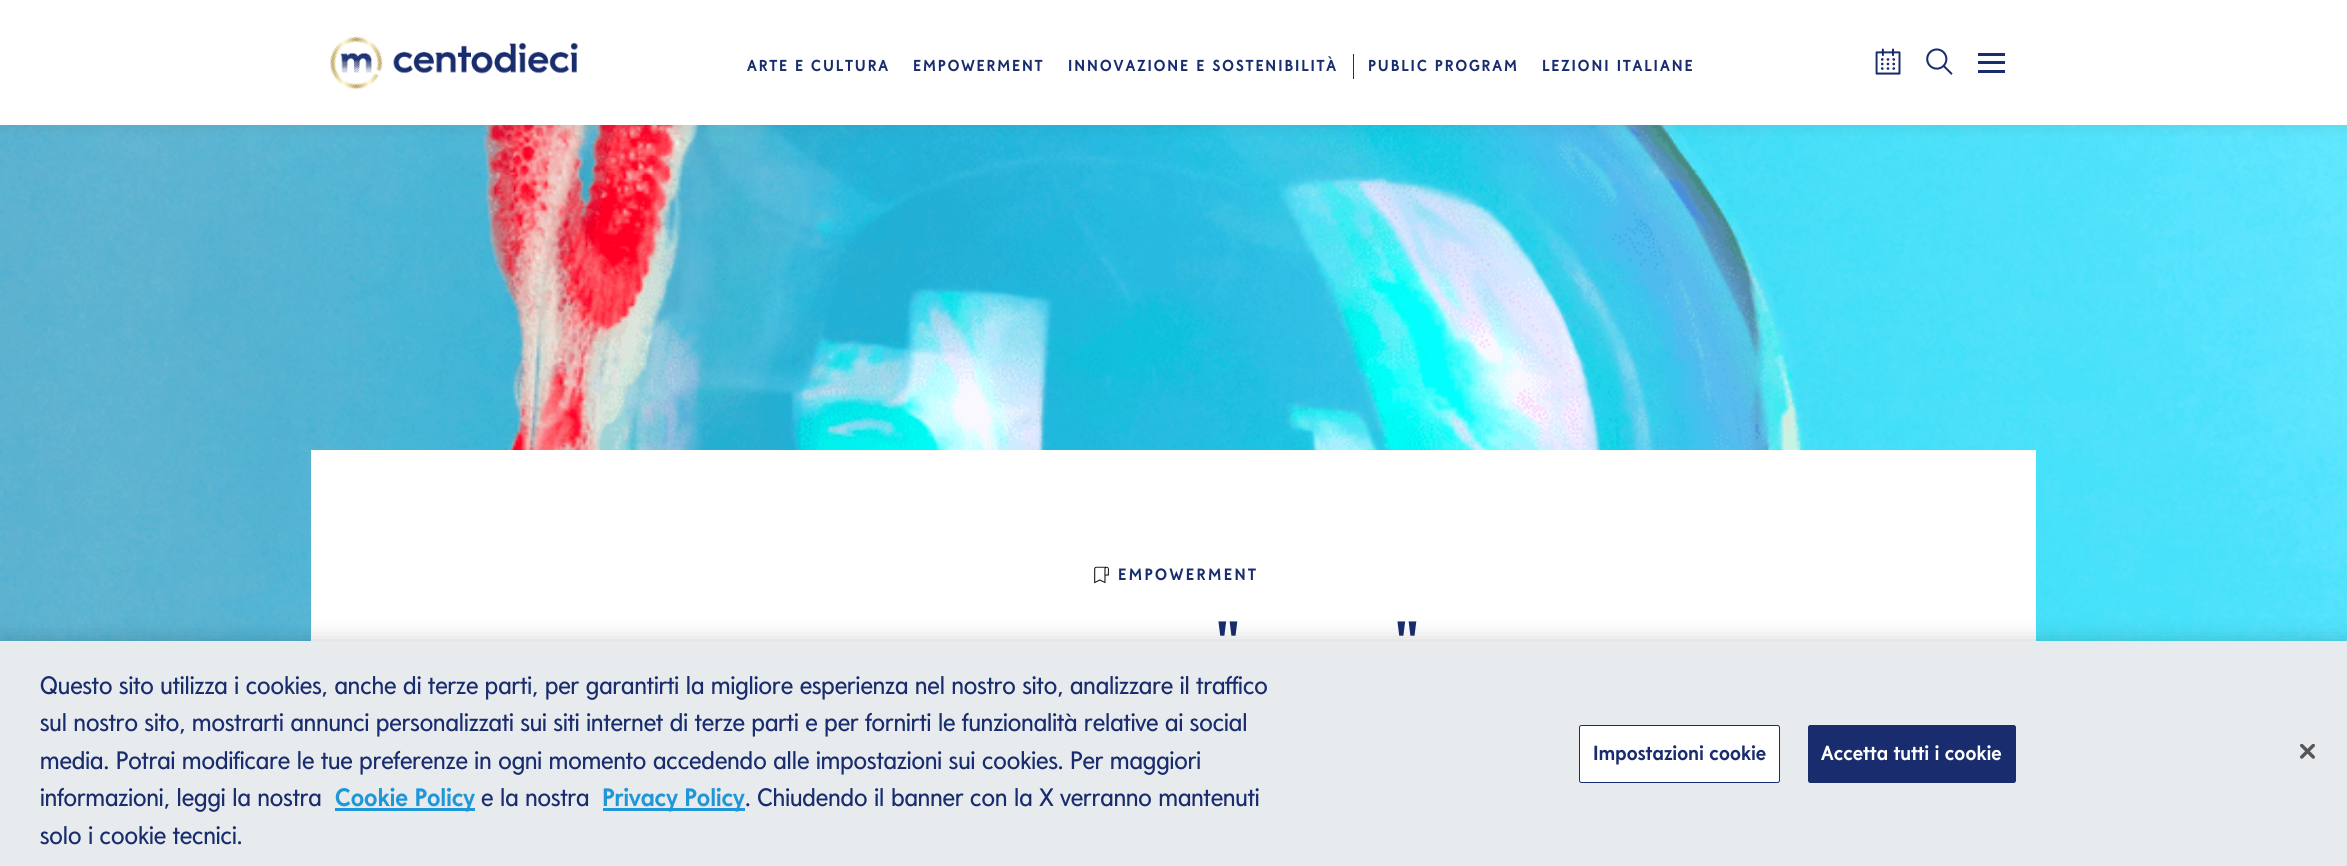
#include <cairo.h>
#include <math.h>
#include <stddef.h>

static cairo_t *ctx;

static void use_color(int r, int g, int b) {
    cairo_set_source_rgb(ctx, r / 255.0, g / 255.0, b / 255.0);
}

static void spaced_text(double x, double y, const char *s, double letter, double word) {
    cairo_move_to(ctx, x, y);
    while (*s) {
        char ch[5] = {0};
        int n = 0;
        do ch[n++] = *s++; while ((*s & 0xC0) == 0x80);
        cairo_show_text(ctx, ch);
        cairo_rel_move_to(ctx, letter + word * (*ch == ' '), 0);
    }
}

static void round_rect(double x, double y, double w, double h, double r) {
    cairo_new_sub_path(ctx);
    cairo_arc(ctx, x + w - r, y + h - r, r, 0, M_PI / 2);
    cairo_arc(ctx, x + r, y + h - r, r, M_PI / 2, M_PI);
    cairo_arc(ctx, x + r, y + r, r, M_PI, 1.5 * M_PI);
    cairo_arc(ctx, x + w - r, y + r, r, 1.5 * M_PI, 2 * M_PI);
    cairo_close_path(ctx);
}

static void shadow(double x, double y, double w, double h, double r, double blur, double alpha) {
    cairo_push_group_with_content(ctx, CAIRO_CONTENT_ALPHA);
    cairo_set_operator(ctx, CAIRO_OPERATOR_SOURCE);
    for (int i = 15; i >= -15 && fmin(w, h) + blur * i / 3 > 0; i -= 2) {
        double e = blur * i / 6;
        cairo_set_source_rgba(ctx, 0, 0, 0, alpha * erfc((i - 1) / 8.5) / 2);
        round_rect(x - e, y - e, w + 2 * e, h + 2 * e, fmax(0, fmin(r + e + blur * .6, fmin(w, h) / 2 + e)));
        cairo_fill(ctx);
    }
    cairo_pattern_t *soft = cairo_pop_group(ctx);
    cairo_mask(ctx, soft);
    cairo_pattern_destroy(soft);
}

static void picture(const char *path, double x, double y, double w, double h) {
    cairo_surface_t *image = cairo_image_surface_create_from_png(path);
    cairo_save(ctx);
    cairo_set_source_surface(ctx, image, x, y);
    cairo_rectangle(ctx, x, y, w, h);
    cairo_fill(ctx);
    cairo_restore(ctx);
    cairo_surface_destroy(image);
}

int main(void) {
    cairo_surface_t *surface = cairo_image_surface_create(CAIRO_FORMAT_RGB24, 2347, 866);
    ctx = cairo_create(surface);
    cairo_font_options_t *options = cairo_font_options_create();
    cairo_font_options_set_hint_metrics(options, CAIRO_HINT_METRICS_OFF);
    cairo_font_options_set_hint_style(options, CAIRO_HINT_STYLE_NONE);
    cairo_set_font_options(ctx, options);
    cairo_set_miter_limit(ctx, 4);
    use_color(255, 255, 255);
    cairo_paint(ctx);
    picture("img4.png", 0, 125, 2347, 516);
    cairo_save(ctx);
    cairo_rectangle(ctx, 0, 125, 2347, 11);
    cairo_clip(ctx);
    use_color(95, 105, 110);
    shadow(0, 6, 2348, 125, 0, 6, 0.1);
    cairo_restore(ctx);
    picture("img1.png", 330, 36, 248, 53);
    cairo_select_font_face(ctx, "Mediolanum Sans", CAIRO_FONT_SLANT_NORMAL, CAIRO_FONT_WEIGHT_BOLD);
    cairo_set_font_size(ctx, 15.75);
    use_color(25, 45, 110);
    spaced_text(747, 71, "ARTE E CULTURA", 2, 0);
    spaced_text(913, 71, "EMPOWERMENT", 2, 0);
    spaced_text(1068, 71, "INNOVAZIONE E SOSTENIBILITÀ", 2, 0);
    cairo_rectangle(ctx, 1353, 54, 1, 25);
    cairo_fill(ctx);
    spaced_text(1368, 71, "PUBLIC PROGRAM", 2, 0);
    spaced_text(1542, 71, "LEZIONI ITALIANE", 2, 0);
    picture("img2.png", 1875, 48, 26, 27);
    picture("img3.png", 1926, 48, 27, 27);
    cairo_rectangle(ctx, 1978, 53, 27, 3);
    cairo_fill(ctx);
    cairo_rectangle(ctx, 1978, 61, 27, 3);
    cairo_fill(ctx);
    cairo_rectangle(ctx, 1978, 70, 27, 3);
    cairo_fill(ctx);
    use_color(255, 255, 255);
    cairo_rectangle(ctx, 311, 450, 1725, 191);
    cairo_fill(ctx);
    picture("img5.png", 1094, 566, 15, 18);
    cairo_set_font_size(ctx, 16.25);
    use_color(25, 45, 110);
    spaced_text(1118, 580, "EMPOWERMENT", 2.5, 0);
    cairo_select_font_face(ctx, "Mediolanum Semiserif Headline", CAIRO_FONT_SLANT_NORMAL, CAIRO_FONT_WEIGHT_BOLD);
    cairo_set_font_size(ctx, 62);
    spaced_text(1215, 666, "\"", 2, 0);
    spaced_text(1394, 666, "\"", 2, 0);
    use_color(0, 0, 0);
    shadow(0, 641, 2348, 225, 0, 11, 0.2);
    use_color(232, 235, 238);
    cairo_rectangle(ctx, 0, 641, 2347, 225);
    cairo_fill(ctx);
    cairo_select_font_face(ctx, "Mediolanum Sans", CAIRO_FONT_SLANT_NORMAL, CAIRO_FONT_WEIGHT_NORMAL);
    cairo_set_font_size(ctx, 25);
    use_color(25, 45, 110);
    cairo_move_to(ctx, 40, 694);
    cairo_show_text(ctx, "Questo sito utilizza i cookies, anche di terze parti, per garantirti la migliore esperienza nel nostro sito, analizzare il traffico");
    cairo_move_to(ctx, 40, 731);
    cairo_show_text(ctx, "sul nostro sito, mostrarti annunci personalizzati sui siti internet di terze parti e per fornirti le funzionalità relative ai social");
    cairo_move_to(ctx, 40, 769);
    cairo_show_text(ctx, "media. Potrai modificare le tue preferenze in ogni momento accedendo alle impostazioni sui cookies. Per maggiori");
    cairo_move_to(ctx, 40, 806);
    cairo_show_text(ctx, "informazioni, leggi la nostra");
    use_color(30, 150, 215);
    cairo_rectangle(ctx, 335, 808, 140, 3);
    cairo_fill(ctx);
    cairo_select_font_face(ctx, "Mediolanum Sans", CAIRO_FONT_SLANT_NORMAL, CAIRO_FONT_WEIGHT_BOLD);
    cairo_move_to(ctx, 335, 806);
    cairo_show_text(ctx, "Cookie Policy");
    cairo_select_font_face(ctx, "Mediolanum Sans", CAIRO_FONT_SLANT_NORMAL, CAIRO_FONT_WEIGHT_NORMAL);
    use_color(25, 45, 110);
    cairo_move_to(ctx, 481, 806);
    cairo_show_text(ctx, "e la nostra");
    use_color(30, 150, 215);
    cairo_rectangle(ctx, 603, 808, 142, 3);
    cairo_fill(ctx);
    cairo_select_font_face(ctx, "Mediolanum Sans", CAIRO_FONT_SLANT_NORMAL, CAIRO_FONT_WEIGHT_BOLD);
    cairo_move_to(ctx, 602, 806);
    cairo_show_text(ctx, "Privacy Policy");
    cairo_select_font_face(ctx, "Mediolanum Sans", CAIRO_FONT_SLANT_NORMAL, CAIRO_FONT_WEIGHT_NORMAL);
    use_color(25, 45, 110);
    cairo_move_to(ctx, 745, 806);
    cairo_show_text(ctx, ". Chiudendo il banner con la X verranno mantenuti");
    cairo_move_to(ctx, 40, 844);
    cairo_show_text(ctx, "solo i cookie tecnici.");
    use_color(255, 255, 255);
    round_rect(1579.5, 725.5, 200, 57, 2);
    cairo_fill_preserve(ctx);
    use_color(25, 45, 110);
    cairo_set_line_width(ctx, 1);
    cairo_stroke(ctx);
    cairo_select_font_face(ctx, "Mediolanum Sans", CAIRO_FONT_SLANT_NORMAL, CAIRO_FONT_WEIGHT_BOLD);
    cairo_set_font_size(ctx, 20.25);
    spaced_text(1593, 760, "Impostazioni cookie", 0.2, 0);
    round_rect(1808.5, 725.5, 207, 57, 2);
    cairo_fill_preserve(ctx);
    cairo_stroke(ctx);
    use_color(255, 255, 255);
    spaced_text(1821, 760, "Accetta tutti i cookie", 0.2, 0);
    picture("img6.png", 2300, 744, 15, 15);
    cairo_surface_write_to_png(surface, "result.png");
    cairo_font_options_destroy(options);
    cairo_destroy(ctx);
    cairo_surface_destroy(surface);
    return 0;
}
